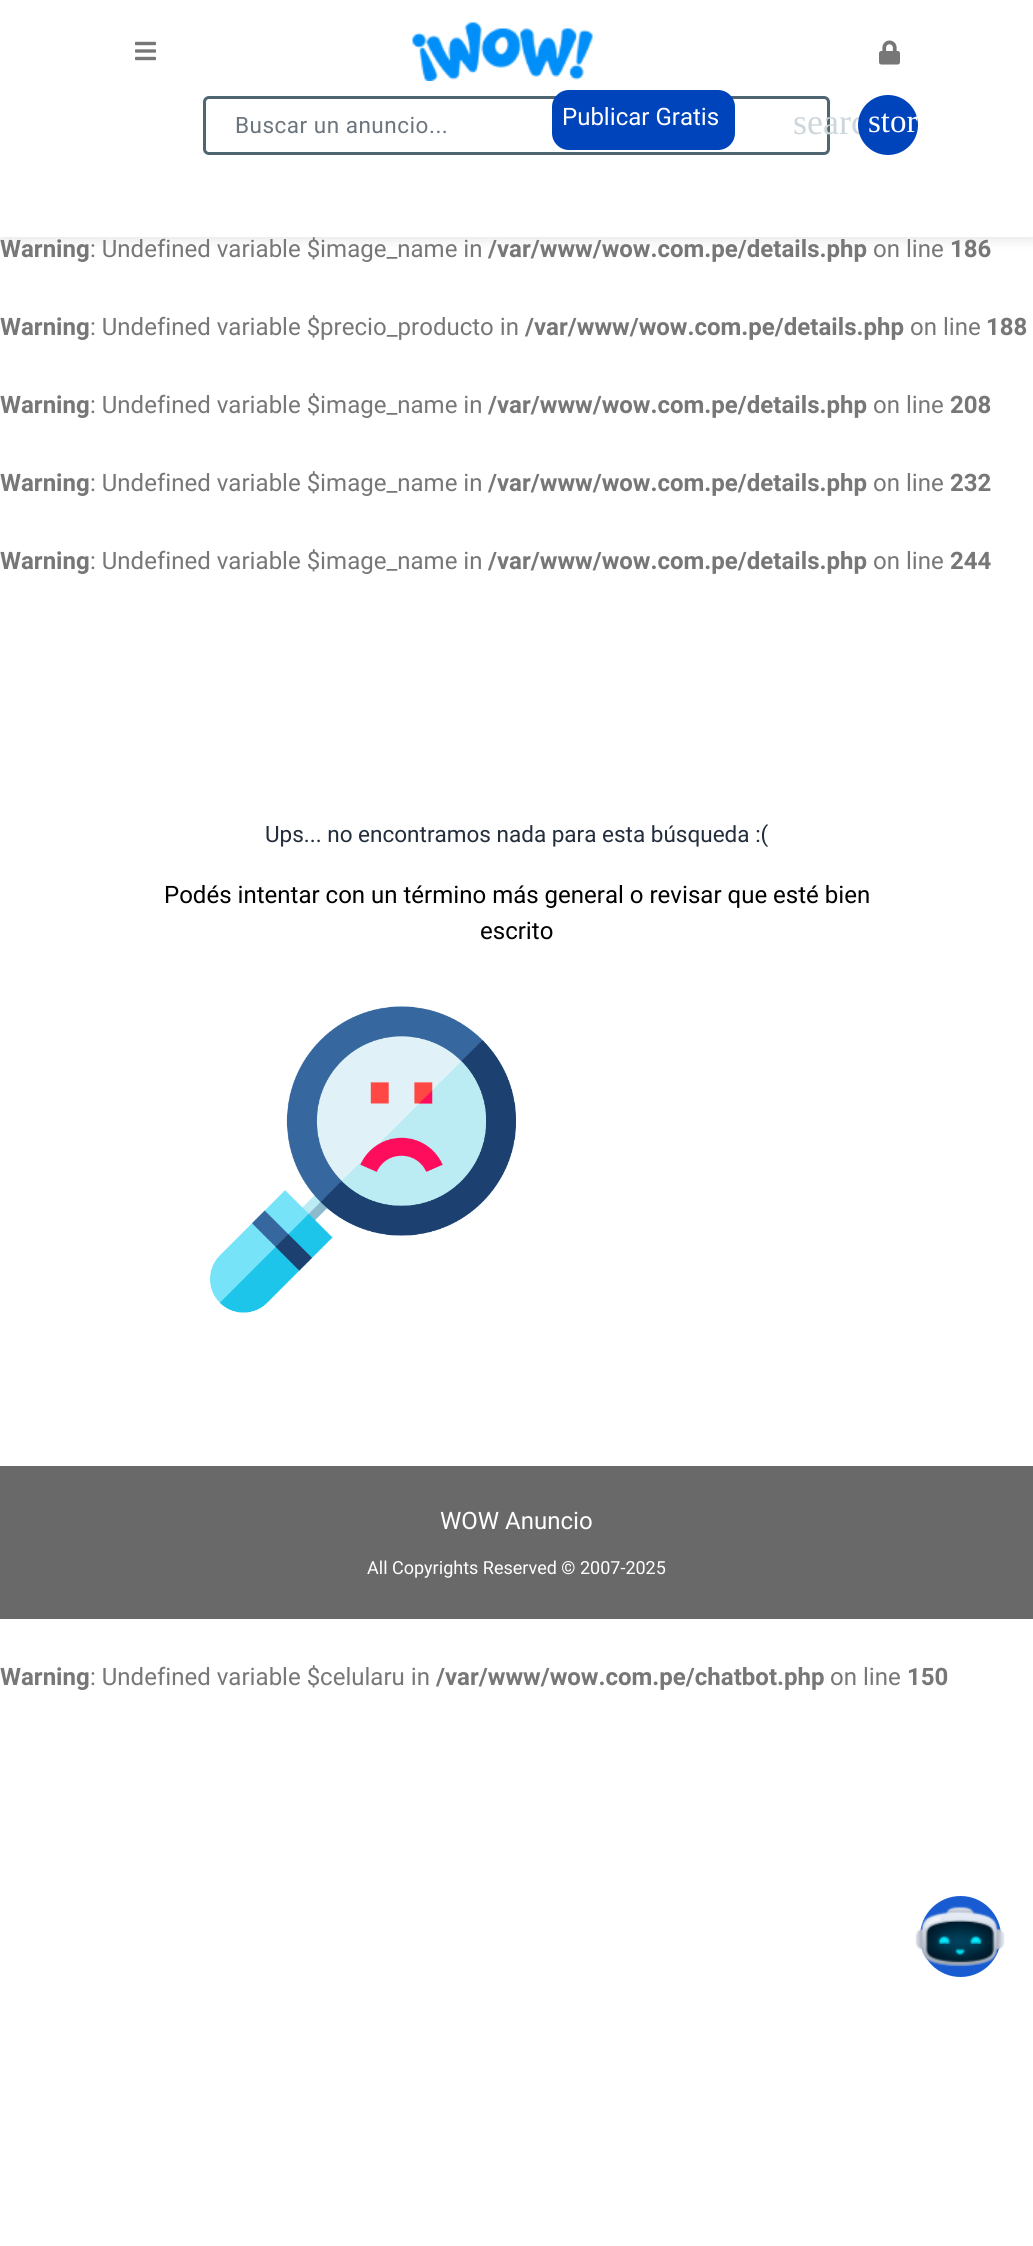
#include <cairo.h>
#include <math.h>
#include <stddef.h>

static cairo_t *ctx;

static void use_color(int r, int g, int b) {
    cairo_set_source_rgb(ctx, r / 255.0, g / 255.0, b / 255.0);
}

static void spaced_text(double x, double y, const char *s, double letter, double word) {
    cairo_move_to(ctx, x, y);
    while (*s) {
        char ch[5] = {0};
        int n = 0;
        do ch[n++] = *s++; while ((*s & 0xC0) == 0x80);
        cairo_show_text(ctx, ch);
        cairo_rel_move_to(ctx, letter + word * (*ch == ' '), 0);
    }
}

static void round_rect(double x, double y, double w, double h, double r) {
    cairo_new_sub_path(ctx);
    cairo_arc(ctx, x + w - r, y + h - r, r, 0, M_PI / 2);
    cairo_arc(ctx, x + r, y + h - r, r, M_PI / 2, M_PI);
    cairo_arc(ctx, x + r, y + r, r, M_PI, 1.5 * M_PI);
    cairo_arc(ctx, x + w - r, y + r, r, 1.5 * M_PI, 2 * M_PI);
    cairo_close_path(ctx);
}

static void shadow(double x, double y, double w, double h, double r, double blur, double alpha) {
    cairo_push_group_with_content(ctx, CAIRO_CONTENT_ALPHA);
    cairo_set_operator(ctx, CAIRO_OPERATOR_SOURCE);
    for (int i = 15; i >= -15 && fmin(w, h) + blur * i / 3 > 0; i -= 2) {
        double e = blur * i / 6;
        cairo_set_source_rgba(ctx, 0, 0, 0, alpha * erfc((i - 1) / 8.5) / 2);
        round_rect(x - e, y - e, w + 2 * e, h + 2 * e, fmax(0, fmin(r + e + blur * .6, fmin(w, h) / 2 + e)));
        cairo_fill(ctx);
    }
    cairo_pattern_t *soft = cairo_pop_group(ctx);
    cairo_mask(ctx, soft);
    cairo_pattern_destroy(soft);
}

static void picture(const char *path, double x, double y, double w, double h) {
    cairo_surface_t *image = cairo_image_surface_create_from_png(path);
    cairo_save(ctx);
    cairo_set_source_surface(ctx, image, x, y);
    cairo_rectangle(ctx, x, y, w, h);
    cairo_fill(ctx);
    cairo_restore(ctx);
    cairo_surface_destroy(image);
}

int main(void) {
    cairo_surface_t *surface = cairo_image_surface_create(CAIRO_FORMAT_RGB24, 1033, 2246);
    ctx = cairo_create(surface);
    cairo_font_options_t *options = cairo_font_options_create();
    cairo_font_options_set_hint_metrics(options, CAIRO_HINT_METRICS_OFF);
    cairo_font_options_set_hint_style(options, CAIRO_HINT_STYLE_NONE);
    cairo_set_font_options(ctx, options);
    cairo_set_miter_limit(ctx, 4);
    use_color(255, 255, 255);
    cairo_paint(ctx);
    use_color(0, 0, 0);
    shadow(0, 3, 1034, 237, 0, 6, 0.1);
    use_color(255, 255, 255);
    cairo_rectangle(ctx, 0, 0, 1033, 237);
    cairo_fill(ctx);
    picture("img1.png", 135, 41, 21, 20);
    picture("img2.png", 412, 22, 181, 59);
    picture("img3.png", 879, 40, 21, 25);
    round_rect(204.5, 97.5, 624, 56, 4.5);
    use_color(78, 102, 113);
    cairo_set_line_width(ctx, 3);
    cairo_stroke(ctx);
    use_color(0, 68, 187);
    round_rect(552, 90, 183, 60, 17);
    cairo_fill(ctx);
    cairo_select_font_face(ctx, "Heebo", CAIRO_FONT_SLANT_NORMAL, CAIRO_FONT_WEIGHT_NORMAL);
    cairo_set_font_size(ctx, 24);
    use_color(255, 255, 255);
    cairo_move_to(ctx, 562, 125);
    cairo_show_text(ctx, "Publicar Gratis");
    cairo_select_font_face(ctx, "Liberation Serif", CAIRO_FONT_SLANT_NORMAL, CAIRO_FONT_WEIGHT_NORMAL);
    cairo_set_font_size(ctx, 36);
    use_color(205, 214, 219);
    cairo_move_to(ctx, 793, 134);
    cairo_show_text(ctx, "searc");
    use_color(0, 68, 187);
    cairo_new_path(ctx);
    cairo_arc(ctx, 888, 125, 30, 0, 2 * M_PI);
    cairo_fill(ctx);
    cairo_set_font_size(ctx, 33);
    use_color(255, 255, 255);
    cairo_move_to(ctx, 868, 132);
    cairo_show_text(ctx, "stor");
    cairo_select_font_face(ctx, "Heebo", CAIRO_FONT_SLANT_NORMAL, CAIRO_FONT_WEIGHT_NORMAL);
    cairo_set_font_size(ctx, 22.5);
    use_color(108, 117, 125);
    spaced_text(235, 133, "Buscar un anuncio...", 0.5, 0);
    cairo_select_font_face(ctx, "Heebo", CAIRO_FONT_SLANT_NORMAL, CAIRO_FONT_WEIGHT_BOLD);
    cairo_set_font_size(ctx, 24);
    use_color(119, 119, 119);
    cairo_move_to(ctx, 0, 257);
    cairo_show_text(ctx, "Warning");
    cairo_select_font_face(ctx, "Heebo", CAIRO_FONT_SLANT_NORMAL, CAIRO_FONT_WEIGHT_NORMAL);
    cairo_move_to(ctx, 90, 257);
    cairo_show_text(ctx, ": Undefined variable $image_name in");
    cairo_select_font_face(ctx, "Heebo", CAIRO_FONT_SLANT_NORMAL, CAIRO_FONT_WEIGHT_BOLD);
    cairo_move_to(ctx, 488, 257);
    cairo_show_text(ctx, "/var/www/wow.com.pe/details.php");
    cairo_select_font_face(ctx, "Heebo", CAIRO_FONT_SLANT_NORMAL, CAIRO_FONT_WEIGHT_NORMAL);
    cairo_move_to(ctx, 873, 257);
    cairo_show_text(ctx, "on line");
    cairo_select_font_face(ctx, "Heebo", CAIRO_FONT_SLANT_NORMAL, CAIRO_FONT_WEIGHT_BOLD);
    cairo_move_to(ctx, 950, 257);
    cairo_show_text(ctx, "186");
    cairo_move_to(ctx, 0, 335);
    cairo_show_text(ctx, "Warning");
    cairo_select_font_face(ctx, "Heebo", CAIRO_FONT_SLANT_NORMAL, CAIRO_FONT_WEIGHT_NORMAL);
    cairo_move_to(ctx, 90, 335);
    cairo_show_text(ctx, ": Undefined variable $precio_producto in");
    cairo_select_font_face(ctx, "Heebo", CAIRO_FONT_SLANT_NORMAL, CAIRO_FONT_WEIGHT_BOLD);
    cairo_move_to(ctx, 525, 335);
    cairo_show_text(ctx, "/var/www/wow.com.pe/details.php");
    cairo_select_font_face(ctx, "Heebo", CAIRO_FONT_SLANT_NORMAL, CAIRO_FONT_WEIGHT_NORMAL);
    cairo_move_to(ctx, 910, 335);
    cairo_show_text(ctx, "on line");
    cairo_select_font_face(ctx, "Heebo", CAIRO_FONT_SLANT_NORMAL, CAIRO_FONT_WEIGHT_BOLD);
    cairo_move_to(ctx, 986, 335);
    cairo_show_text(ctx, "188");
    cairo_move_to(ctx, 0, 413);
    cairo_show_text(ctx, "Warning");
    cairo_select_font_face(ctx, "Heebo", CAIRO_FONT_SLANT_NORMAL, CAIRO_FONT_WEIGHT_NORMAL);
    cairo_move_to(ctx, 90, 413);
    cairo_show_text(ctx, ": Undefined variable $image_name in");
    cairo_select_font_face(ctx, "Heebo", CAIRO_FONT_SLANT_NORMAL, CAIRO_FONT_WEIGHT_BOLD);
    cairo_move_to(ctx, 488, 413);
    cairo_show_text(ctx, "/var/www/wow.com.pe/details.php");
    cairo_select_font_face(ctx, "Heebo", CAIRO_FONT_SLANT_NORMAL, CAIRO_FONT_WEIGHT_NORMAL);
    cairo_move_to(ctx, 873, 413);
    cairo_show_text(ctx, "on line");
    cairo_select_font_face(ctx, "Heebo", CAIRO_FONT_SLANT_NORMAL, CAIRO_FONT_WEIGHT_BOLD);
    cairo_move_to(ctx, 950, 413);
    cairo_show_text(ctx, "208");
    cairo_move_to(ctx, 0, 491);
    cairo_show_text(ctx, "Warning");
    cairo_select_font_face(ctx, "Heebo", CAIRO_FONT_SLANT_NORMAL, CAIRO_FONT_WEIGHT_NORMAL);
    cairo_move_to(ctx, 90, 491);
    cairo_show_text(ctx, ": Undefined variable $image_name in");
    cairo_select_font_face(ctx, "Heebo", CAIRO_FONT_SLANT_NORMAL, CAIRO_FONT_WEIGHT_BOLD);
    cairo_move_to(ctx, 488, 491);
    cairo_show_text(ctx, "/var/www/wow.com.pe/details.php");
    cairo_select_font_face(ctx, "Heebo", CAIRO_FONT_SLANT_NORMAL, CAIRO_FONT_WEIGHT_NORMAL);
    cairo_move_to(ctx, 873, 491);
    cairo_show_text(ctx, "on line");
    cairo_select_font_face(ctx, "Heebo", CAIRO_FONT_SLANT_NORMAL, CAIRO_FONT_WEIGHT_BOLD);
    cairo_move_to(ctx, 950, 491);
    cairo_show_text(ctx, "232");
    cairo_move_to(ctx, 0, 569);
    cairo_show_text(ctx, "Warning");
    cairo_select_font_face(ctx, "Heebo", CAIRO_FONT_SLANT_NORMAL, CAIRO_FONT_WEIGHT_NORMAL);
    cairo_move_to(ctx, 90, 569);
    cairo_show_text(ctx, ": Undefined variable $image_name in");
    cairo_select_font_face(ctx, "Heebo", CAIRO_FONT_SLANT_NORMAL, CAIRO_FONT_WEIGHT_BOLD);
    cairo_move_to(ctx, 488, 569);
    cairo_show_text(ctx, "/var/www/wow.com.pe/details.php");
    cairo_select_font_face(ctx, "Heebo", CAIRO_FONT_SLANT_NORMAL, CAIRO_FONT_WEIGHT_NORMAL);
    cairo_move_to(ctx, 873, 569);
    cairo_show_text(ctx, "on line");
    cairo_select_font_face(ctx, "Heebo", CAIRO_FONT_SLANT_NORMAL, CAIRO_FONT_WEIGHT_BOLD);
    cairo_move_to(ctx, 950, 569);
    cairo_show_text(ctx, "244");
    cairo_select_font_face(ctx, "Heebo", CAIRO_FONT_SLANT_NORMAL, CAIRO_FONT_WEIGHT_NORMAL);
    cairo_set_font_size(ctx, 22.5);
    use_color(35, 45, 59);
    cairo_move_to(ctx, 265, 842);
    cairo_show_text(ctx, "Ups... no encontramos nada para esta búsqueda :(");
    cairo_set_font_size(ctx, 24);
    use_color(0, 0, 0);
    cairo_move_to(ctx, 164, 903);
    cairo_show_text(ctx, "Podés intentar con un término más general o revisar que esté bien");
    cairo_move_to(ctx, 480, 939);
    cairo_show_text(ctx, "escrito");
    picture("img4.png", 210, 1006, 306, 307);
    use_color(105, 105, 105);
    cairo_rectangle(ctx, 0, 1466, 1033, 153);
    cairo_fill(ctx);
    use_color(255, 255, 255);
    cairo_move_to(ctx, 440, 1529);
    cairo_show_text(ctx, "WOW Anuncio");
    cairo_set_font_size(ctx, 18);
    cairo_move_to(ctx, 367, 1574);
    cairo_show_text(ctx, "All Copyrights Reserved © 2007-2025");
    cairo_select_font_face(ctx, "Heebo", CAIRO_FONT_SLANT_NORMAL, CAIRO_FONT_WEIGHT_BOLD);
    cairo_set_font_size(ctx, 24);
    use_color(119, 119, 119);
    cairo_move_to(ctx, 0, 1685);
    cairo_show_text(ctx, "Warning");
    cairo_select_font_face(ctx, "Heebo", CAIRO_FONT_SLANT_NORMAL, CAIRO_FONT_WEIGHT_NORMAL);
    cairo_move_to(ctx, 90, 1685);
    cairo_show_text(ctx, ": Undefined variable $celularu in");
    cairo_select_font_face(ctx, "Heebo", CAIRO_FONT_SLANT_NORMAL, CAIRO_FONT_WEIGHT_BOLD);
    cairo_move_to(ctx, 436, 1685);
    cairo_show_text(ctx, "/var/www/wow.com.pe/chatbot.php");
    cairo_select_font_face(ctx, "Heebo", CAIRO_FONT_SLANT_NORMAL, CAIRO_FONT_WEIGHT_NORMAL);
    cairo_move_to(ctx, 830, 1685);
    cairo_show_text(ctx, "on line");
    cairo_select_font_face(ctx, "Heebo", CAIRO_FONT_SLANT_NORMAL, CAIRO_FONT_WEIGHT_BOLD);
    cairo_move_to(ctx, 907, 1685);
    cairo_show_text(ctx, "150");
    use_color(25, 92, 209);
    cairo_new_path(ctx);
    cairo_arc(ctx, 960.5, 1936.5, 40.5, 0, 2 * M_PI);
    cairo_fill(ctx);
    picture("img5.png", 915, 1906, 90, 61);
    cairo_surface_write_to_png(surface, "result.png");
    cairo_font_options_destroy(options);
    cairo_destroy(ctx);
    cairo_surface_destroy(surface);
    return 0;
}
